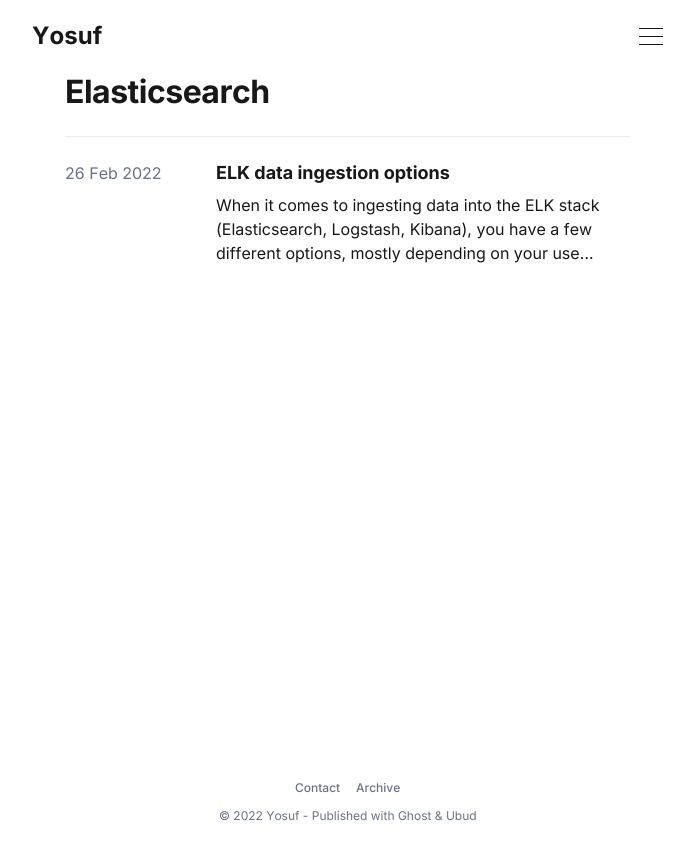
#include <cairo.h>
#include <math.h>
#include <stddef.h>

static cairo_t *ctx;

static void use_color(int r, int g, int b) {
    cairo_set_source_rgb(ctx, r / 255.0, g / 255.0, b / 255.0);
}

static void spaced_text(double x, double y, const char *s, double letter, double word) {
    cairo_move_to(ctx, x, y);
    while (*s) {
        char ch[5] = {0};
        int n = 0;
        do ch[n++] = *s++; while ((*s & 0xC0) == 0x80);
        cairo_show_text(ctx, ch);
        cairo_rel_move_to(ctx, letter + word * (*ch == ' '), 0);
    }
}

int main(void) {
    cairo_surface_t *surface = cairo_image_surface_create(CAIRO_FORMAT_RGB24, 695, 856);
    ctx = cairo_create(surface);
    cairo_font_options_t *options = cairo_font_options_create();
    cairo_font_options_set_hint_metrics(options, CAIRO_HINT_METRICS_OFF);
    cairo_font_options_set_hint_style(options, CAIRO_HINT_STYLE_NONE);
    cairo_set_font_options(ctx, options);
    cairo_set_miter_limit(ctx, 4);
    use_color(255, 255, 255);
    cairo_paint(ctx);
    cairo_select_font_face(ctx, "Inter", CAIRO_FONT_SLANT_NORMAL, CAIRO_FONT_WEIGHT_BOLD);
    cairo_set_font_size(ctx, 24);
    use_color(24, 24, 24);
    cairo_move_to(ctx, 32, 44);
    cairo_show_text(ctx, "Yosuf");
    cairo_rectangle(ctx, 639, 28, 24, 1);
    cairo_fill(ctx);
    cairo_rectangle(ctx, 639, 36, 24, 1);
    cairo_fill(ctx);
    cairo_rectangle(ctx, 639, 44, 24, 1);
    cairo_fill(ctx);
    use_color(236, 236, 236);
    cairo_rectangle(ctx, 65, 136, 565, 1);
    cairo_fill(ctx);
    cairo_set_font_size(ctx, 32);
    use_color(24, 24, 24);
    spaced_text(65, 103, "Elasticsearch", -0.5, 0);
    cairo_select_font_face(ctx, "Inter", CAIRO_FONT_SLANT_NORMAL, CAIRO_FONT_WEIGHT_NORMAL);
    cairo_set_font_size(ctx, 16);
    use_color(104, 115, 133);
    cairo_move_to(ctx, 65, 179);
    cairo_show_text(ctx, "26 Feb 2022");
    cairo_select_font_face(ctx, "Inter", CAIRO_FONT_SLANT_NORMAL, CAIRO_FONT_WEIGHT_BOLD);
    cairo_set_font_size(ctx, 18);
    use_color(24, 24, 24);
    cairo_move_to(ctx, 216, 179);
    cairo_show_text(ctx, "ELK data ingestion options");
    cairo_select_font_face(ctx, "Inter", CAIRO_FONT_SLANT_NORMAL, CAIRO_FONT_WEIGHT_NORMAL);
    cairo_set_font_size(ctx, 16);
    cairo_move_to(ctx, 216, 211);
    cairo_show_text(ctx, "When it comes to ingesting data into the ELK stack");
    cairo_move_to(ctx, 216, 235);
    cairo_show_text(ctx, "(Elasticsearch, Logstash, Kibana), you have a few");
    cairo_move_to(ctx, 216, 259);
    cairo_show_text(ctx, "different options, mostly depending on your use…");
    cairo_select_font_face(ctx, "Inter Medium", CAIRO_FONT_SLANT_NORMAL, CAIRO_FONT_WEIGHT_NORMAL);
    cairo_set_font_size(ctx, 12);
    use_color(104, 115, 133);
    cairo_move_to(ctx, 295, 792);
    cairo_show_text(ctx, "Contact");
    cairo_move_to(ctx, 356, 792);
    cairo_show_text(ctx, "Archive");
    cairo_select_font_face(ctx, "Inter", CAIRO_FONT_SLANT_NORMAL, CAIRO_FONT_WEIGHT_NORMAL);
    cairo_move_to(ctx, 219, 820);
    cairo_show_text(ctx, "© 2022 Yosuf - Published with Ghost & Ubud");
    cairo_surface_write_to_png(surface, "result.png");
    cairo_font_options_destroy(options);
    cairo_destroy(ctx);
    cairo_surface_destroy(surface);
    return 0;
}
